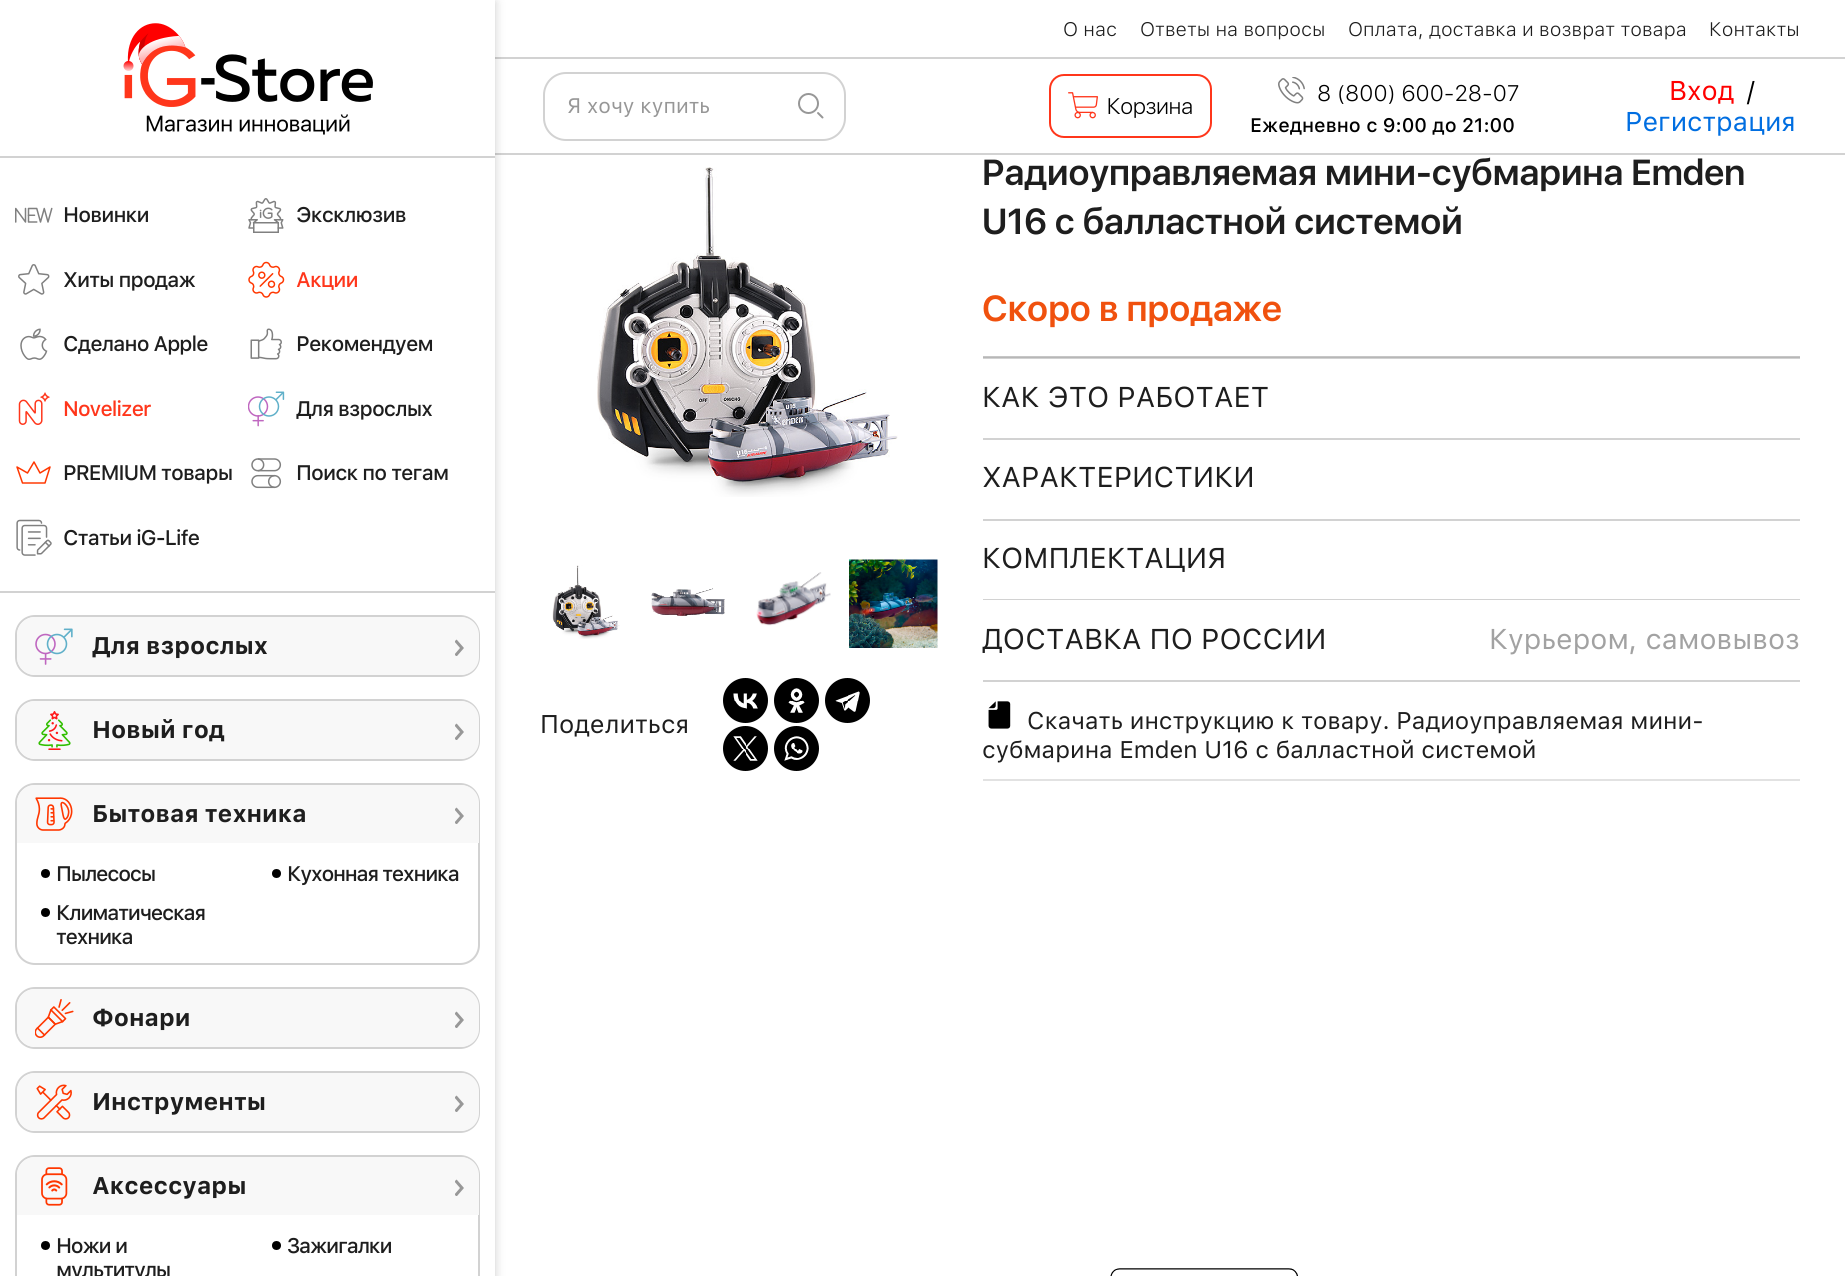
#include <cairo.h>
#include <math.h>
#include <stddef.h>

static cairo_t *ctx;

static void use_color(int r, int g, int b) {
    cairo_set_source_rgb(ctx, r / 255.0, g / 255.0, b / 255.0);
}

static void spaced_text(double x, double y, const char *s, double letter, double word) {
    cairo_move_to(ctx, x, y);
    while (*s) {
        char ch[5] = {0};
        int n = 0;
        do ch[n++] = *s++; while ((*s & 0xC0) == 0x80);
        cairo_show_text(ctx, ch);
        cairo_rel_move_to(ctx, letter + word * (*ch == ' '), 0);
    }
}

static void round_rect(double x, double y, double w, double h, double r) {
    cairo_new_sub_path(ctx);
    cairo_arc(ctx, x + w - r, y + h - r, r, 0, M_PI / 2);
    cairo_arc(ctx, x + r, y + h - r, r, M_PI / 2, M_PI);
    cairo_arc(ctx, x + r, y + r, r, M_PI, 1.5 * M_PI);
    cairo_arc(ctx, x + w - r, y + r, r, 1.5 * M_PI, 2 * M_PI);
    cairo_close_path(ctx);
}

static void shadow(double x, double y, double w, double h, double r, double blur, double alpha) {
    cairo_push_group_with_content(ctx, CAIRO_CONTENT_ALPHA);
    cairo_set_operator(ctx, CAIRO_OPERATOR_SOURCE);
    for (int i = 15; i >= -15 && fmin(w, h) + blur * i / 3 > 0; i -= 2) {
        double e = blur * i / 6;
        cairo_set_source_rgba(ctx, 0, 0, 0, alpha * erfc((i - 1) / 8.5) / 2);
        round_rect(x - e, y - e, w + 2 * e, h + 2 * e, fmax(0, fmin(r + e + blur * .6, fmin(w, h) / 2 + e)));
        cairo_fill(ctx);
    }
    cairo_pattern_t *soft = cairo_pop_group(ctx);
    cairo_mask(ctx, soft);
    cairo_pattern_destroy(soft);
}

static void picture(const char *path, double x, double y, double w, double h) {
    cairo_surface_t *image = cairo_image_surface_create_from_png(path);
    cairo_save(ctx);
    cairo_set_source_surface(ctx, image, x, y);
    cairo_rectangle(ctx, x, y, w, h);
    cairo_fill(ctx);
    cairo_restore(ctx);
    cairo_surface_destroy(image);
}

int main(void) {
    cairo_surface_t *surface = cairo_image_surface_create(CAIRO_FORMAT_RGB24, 1845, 1276);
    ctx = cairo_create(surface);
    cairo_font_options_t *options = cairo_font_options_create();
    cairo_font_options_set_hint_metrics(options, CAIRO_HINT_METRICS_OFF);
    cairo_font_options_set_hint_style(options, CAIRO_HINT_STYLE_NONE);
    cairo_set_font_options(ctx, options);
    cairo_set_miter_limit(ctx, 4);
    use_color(255, 255, 255);
    cairo_paint(ctx);
    use_color(210, 210, 210);
    cairo_rectangle(ctx, 495, 57, 1350, 2);
    cairo_fill(ctx);
    cairo_rectangle(ctx, 495, 153, 1350, 2);
    cairo_fill(ctx);
    use_color(0, 0, 0);
    shadow(0, 2, 495, 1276, 0, 5, 0.2);
    use_color(255, 255, 255);
    cairo_rectangle(ctx, 0, 0, 495, 1276);
    cairo_fill(ctx);
    use_color(210, 210, 210);
    cairo_rectangle(ctx, 0, 156, 495, 2);
    cairo_fill(ctx);
    picture("img1.png", 123, 23, 250, 112);
    cairo_rectangle(ctx, 0, 591, 495, 2);
    cairo_fill(ctx);
    picture("img2.png", 15, 207, 38, 16);
    cairo_select_font_face(ctx, "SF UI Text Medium", CAIRO_FONT_SLANT_NORMAL, CAIRO_FONT_WEIGHT_NORMAL);
    cairo_set_font_size(ctx, 21);
    use_color(30, 30, 30);
    spaced_text(63, 222, "Новинки", -0.9, 0);
    picture("img3.png", 248, 198, 36, 35);
    spaced_text(296, 222, "Эксклюзив", -0.9, 0);
    picture("img4.png", 18, 264, 32, 31);
    spaced_text(63, 287, "Хиты продаж", -0.9, 0);
    picture("img5.png", 248, 261, 37, 37);
    use_color(255, 54, 27);
    spaced_text(296, 287, "Акции", -0.9, 0);
    picture("img6.png", 20, 328, 28, 32);
    use_color(30, 30, 30);
    spaced_text(63, 351, "Сделано Apple", -0.9, 0);
    picture("img7.png", 250, 328, 32, 32);
    spaced_text(296, 351, "Рекомендуем", -0.9, 0);
    picture("img8.png", 18, 392, 32, 33);
    use_color(255, 54, 27);
    spaced_text(63, 416, "Novelizer", -0.9, 0);
    picture("img9.png", 248, 391, 37, 36);
    use_color(30, 30, 30);
    spaced_text(296, 416, "Для взрослых", -0.9, 0);
    cairo_new_path(ctx);
    cairo_move_to(ctx, 22.5, 483);
    cairo_line_to(ctx, 17, 467);
    cairo_line_to(ctx, 27.5, 473);
    cairo_line_to(ctx, 34, 462);
    cairo_line_to(ctx, 40, 473);
    cairo_line_to(ctx, 50, 467);
    cairo_line_to(ctx, 45, 483);
    cairo_close_path(ctx);
    use_color(255, 55, 0);
    cairo_set_line_width(ctx, 1.5);
    cairo_set_line_join(ctx, CAIRO_LINE_JOIN_ROUND);
    cairo_stroke(ctx);
    use_color(30, 30, 30);
    spaced_text(63, 480, "PREMIUM товары", -0.9, 0);
    picture("img10.png", 251, 458, 31, 31);
    spaced_text(296, 480, "Поиск по тегам", -0.9, 0);
    picture("img11.png", 16, 519, 36, 37);
    spaced_text(63, 545, "Статьи iG-Life", -0.9, 0);
    round_rect(16, 616, 463, 60, 19);
    use_color(210, 210, 210);
    cairo_set_line_width(ctx, 2);
    cairo_set_line_join(ctx, CAIRO_LINE_JOIN_MITER);
    cairo_stroke(ctx);
    use_color(248, 248, 248);
    round_rect(17, 617, 462, 58, 18);
    cairo_fill(ctx);
    picture("img12.png", 35, 628, 38, 37);
    cairo_select_font_face(ctx, "SF UI Text", CAIRO_FONT_SLANT_NORMAL, CAIRO_FONT_WEIGHT_BOLD);
    cairo_set_font_size(ctx, 24);
    use_color(30, 30, 30);
    cairo_move_to(ctx, 92, 654);
    cairo_show_text(ctx, "Для взрослых");
    cairo_save(ctx);
    cairo_rectangle(ctx, 455, 639, 9, 17);
    cairo_clip(ctx);
    cairo_new_path(ctx);
    cairo_move_to(ctx, 455.5, 640.5);
    cairo_line_to(ctx, 462, 648);
    cairo_line_to(ctx, 455.5, 655.5);
    use_color(152, 152, 152);
    cairo_set_line_width(ctx, 3);
    cairo_stroke(ctx);
    cairo_restore(ctx);
    round_rect(16, 700, 463, 60, 19);
    use_color(210, 210, 210);
    cairo_stroke(ctx);
    use_color(248, 248, 248);
    round_rect(17, 701, 462, 58, 18);
    cairo_fill(ctx);
    picture("img13.png", 38, 711, 33, 39);
    use_color(30, 30, 30);
    cairo_move_to(ctx, 92, 738);
    cairo_show_text(ctx, "Новый год");
    cairo_save(ctx);
    cairo_rectangle(ctx, 455, 723, 9, 17);
    cairo_clip(ctx);
    cairo_new_path(ctx);
    cairo_move_to(ctx, 455.5, 724.5);
    cairo_line_to(ctx, 462, 732);
    cairo_line_to(ctx, 455.5, 739.5);
    use_color(152, 152, 152);
    cairo_set_line_width(ctx, 3);
    cairo_stroke(ctx);
    cairo_restore(ctx);
    round_rect(16, 784, 463, 180, 19);
    use_color(210, 210, 210);
    cairo_stroke(ctx);
    use_color(248, 248, 248);
    cairo_new_path(ctx);
    cairo_move_to(ctx, 35, 785);
    cairo_line_to(ctx, 461, 785);
    cairo_curve_to(ctx, 471, 785, 479, 793, 479, 803);
    cairo_line_to(ctx, 479, 843);
    cairo_line_to(ctx, 17, 843);
    cairo_line_to(ctx, 17, 803);
    cairo_curve_to(ctx, 17, 793, 25, 785, 35, 785);
    cairo_close_path(ctx);
    cairo_fill(ctx);
    picture("img14.png", 35, 797, 38, 34);
    use_color(30, 30, 30);
    cairo_move_to(ctx, 92, 822);
    cairo_show_text(ctx, "Бытовая техника");
    cairo_save(ctx);
    cairo_rectangle(ctx, 455, 807, 9, 17);
    cairo_clip(ctx);
    cairo_new_path(ctx);
    cairo_move_to(ctx, 455.5, 808.5);
    cairo_line_to(ctx, 462, 816);
    cairo_line_to(ctx, 455.5, 823.5);
    use_color(152, 152, 152);
    cairo_set_line_width(ctx, 3);
    cairo_stroke(ctx);
    cairo_restore(ctx);
    use_color(0, 0, 0);
    cairo_arc(ctx, 45.5, 873.5, 4.5, 0, 2 * M_PI);
    cairo_fill(ctx);
    cairo_select_font_face(ctx, "SF UI Text Medium", CAIRO_FONT_SLANT_NORMAL, CAIRO_FONT_WEIGHT_NORMAL);
    cairo_set_font_size(ctx, 21);
    use_color(30, 30, 30);
    spaced_text(56, 881, "Пылесосы", -1.25, 0);
    use_color(0, 0, 0);
    cairo_new_path(ctx);
    cairo_arc(ctx, 45.5, 912.5, 4.5, 0, 2 * M_PI);
    cairo_fill(ctx);
    use_color(30, 30, 30);
    spaced_text(56, 920, "Климатическая", -1.25, 0);
    spaced_text(56, 944, "техника", -1.25, 0);
    use_color(0, 0, 0);
    cairo_new_path(ctx);
    cairo_arc(ctx, 276.5, 873.5, 4.5, 0, 2 * M_PI);
    cairo_fill(ctx);
    use_color(30, 30, 30);
    spaced_text(287, 881, "Кухонная техника", -1.25, 0);
    round_rect(16, 988, 463, 60, 19);
    use_color(210, 210, 210);
    cairo_stroke(ctx);
    use_color(248, 248, 248);
    round_rect(17, 989, 462, 58, 18);
    cairo_fill(ctx);
    picture("img15.png", 35, 999, 39, 39);
    cairo_select_font_face(ctx, "SF UI Text", CAIRO_FONT_SLANT_NORMAL, CAIRO_FONT_WEIGHT_BOLD);
    cairo_set_font_size(ctx, 24);
    use_color(30, 30, 30);
    cairo_move_to(ctx, 92, 1026);
    cairo_show_text(ctx, "Фонари");
    cairo_save(ctx);
    cairo_rectangle(ctx, 455, 1011, 9, 17);
    cairo_clip(ctx);
    cairo_new_path(ctx);
    cairo_move_to(ctx, 455.5, 1012.5);
    cairo_line_to(ctx, 462, 1020);
    cairo_line_to(ctx, 455.5, 1027.5);
    use_color(152, 152, 152);
    cairo_set_line_width(ctx, 3);
    cairo_stroke(ctx);
    cairo_restore(ctx);
    round_rect(16, 1072, 463, 60, 19);
    use_color(210, 210, 210);
    cairo_stroke(ctx);
    use_color(248, 248, 248);
    round_rect(17, 1073, 462, 58, 18);
    cairo_fill(ctx);
    picture("img16.png", 36, 1084, 36, 36);
    use_color(30, 30, 30);
    cairo_move_to(ctx, 92, 1110);
    cairo_show_text(ctx, "Инструменты");
    cairo_save(ctx);
    cairo_rectangle(ctx, 455, 1095, 9, 17);
    cairo_clip(ctx);
    cairo_new_path(ctx);
    cairo_move_to(ctx, 455.5, 1096.5);
    cairo_line_to(ctx, 462, 1104);
    cairo_line_to(ctx, 455.5, 1111.5);
    use_color(152, 152, 152);
    cairo_set_line_width(ctx, 3);
    cairo_stroke(ctx);
    cairo_restore(ctx);
    round_rect(16, 1156, 463, 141, 19);
    use_color(210, 210, 210);
    cairo_stroke(ctx);
    use_color(248, 248, 248);
    cairo_new_path(ctx);
    cairo_move_to(ctx, 35, 1157);
    cairo_line_to(ctx, 461, 1157);
    cairo_curve_to(ctx, 471, 1157, 479, 1165, 479, 1175);
    cairo_line_to(ctx, 479, 1215);
    cairo_line_to(ctx, 17, 1215);
    cairo_line_to(ctx, 17, 1175);
    cairo_curve_to(ctx, 17, 1165, 25, 1157, 35, 1157);
    cairo_close_path(ctx);
    cairo_fill(ctx);
    picture("img17.png", 41, 1167, 27, 39);
    use_color(30, 30, 30);
    cairo_move_to(ctx, 92, 1194);
    cairo_show_text(ctx, "Аксессуары");
    cairo_save(ctx);
    cairo_rectangle(ctx, 455, 1179, 9, 17);
    cairo_clip(ctx);
    cairo_new_path(ctx);
    cairo_move_to(ctx, 455.5, 1180.5);
    cairo_line_to(ctx, 462, 1188);
    cairo_line_to(ctx, 455.5, 1195.5);
    use_color(152, 152, 152);
    cairo_set_line_width(ctx, 3);
    cairo_stroke(ctx);
    cairo_restore(ctx);
    use_color(0, 0, 0);
    cairo_arc(ctx, 45.5, 1245.5, 4.5, 0, 2 * M_PI);
    cairo_fill(ctx);
    cairo_select_font_face(ctx, "SF UI Text Medium", CAIRO_FONT_SLANT_NORMAL, CAIRO_FONT_WEIGHT_NORMAL);
    cairo_set_font_size(ctx, 21);
    use_color(30, 30, 30);
    spaced_text(56, 1253, "Ножи и", -1.25, 0);
    spaced_text(56, 1277, "мультитулы", -1.25, 0);
    use_color(0, 0, 0);
    cairo_new_path(ctx);
    cairo_arc(ctx, 276.5, 1245.5, 4.5, 0, 2 * M_PI);
    cairo_fill(ctx);
    use_color(30, 30, 30);
    spaced_text(287, 1253, "Зажигалки", -1.25, 0);
    use_color(198, 198, 198);
    cairo_rectangle(ctx, 983, 356, 817, 1);
    cairo_fill(ctx);
    cairo_select_font_face(ctx, "SF UI Text Light", CAIRO_FONT_SLANT_NORMAL, CAIRO_FONT_WEIGHT_NORMAL);
    cairo_set_font_size(ctx, 19.5);
    use_color(30, 30, 30);
    cairo_move_to(ctx, 1063, 36);
    cairo_show_text(ctx, "О нас");
    cairo_move_to(ctx, 1140, 36);
    cairo_show_text(ctx, "Ответы на вопросы");
    cairo_move_to(ctx, 1348, 36);
    cairo_show_text(ctx, "Оплата, доставка и возврат товара");
    cairo_move_to(ctx, 1709, 36);
    cairo_show_text(ctx, "Контакты");
    round_rect(544, 73, 301, 67, 22);
    use_color(210, 210, 210);
    cairo_stroke(ctx);
    picture("img18.png", 798, 93, 26, 26);
    cairo_select_font_face(ctx, "SF UI Text", CAIRO_FONT_SLANT_NORMAL, CAIRO_FONT_WEIGHT_NORMAL);
    cairo_set_font_size(ctx, 21);
    use_color(151, 151, 151);
    cairo_move_to(ctx, 567, 113);
    cairo_show_text(ctx, "Я хочу купить");
    round_rect(1050, 75, 161, 62, 14);
    use_color(255, 54, 27);
    cairo_stroke(ctx);
    picture("img19.png", 1068, 92, 30, 27);
    cairo_select_font_face(ctx, "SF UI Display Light", CAIRO_FONT_SLANT_NORMAL, CAIRO_FONT_WEIGHT_NORMAL);
    cairo_set_font_size(ctx, 22.5);
    use_color(0, 0, 0);
    cairo_move_to(ctx, 1107, 114);
    cairo_show_text(ctx, "Корзина");
    picture("img20.png", 1278, 77, 27, 27);
    cairo_select_font_face(ctx, "SF UI Text Light", CAIRO_FONT_SLANT_NORMAL, CAIRO_FONT_WEIGHT_NORMAL);
    cairo_move_to(ctx, 1317, 101);
    cairo_show_text(ctx, "8 (800) 600-28-07");
    cairo_select_font_face(ctx, "SF UI Text Medium", CAIRO_FONT_SLANT_NORMAL, CAIRO_FONT_WEIGHT_NORMAL);
    cairo_set_font_size(ctx, 19.5);
    cairo_move_to(ctx, 1250, 132);
    cairo_show_text(ctx, "Ежедневно с 9:00 до 21:00");
    cairo_select_font_face(ctx, "SF UI Text", CAIRO_FONT_SLANT_NORMAL, CAIRO_FONT_WEIGHT_NORMAL);
    cairo_set_font_size(ctx, 27);
    use_color(255, 0, 0);
    cairo_move_to(ctx, 1669, 100);
    cairo_show_text(ctx, "Вход");
    use_color(0, 0, 0);
    cairo_move_to(ctx, 1746, 100);
    cairo_show_text(ctx, "/");
    use_color(0, 110, 225);
    cairo_move_to(ctx, 1625, 131);
    cairo_show_text(ctx, "Регистрация");
    picture("img21.png", 597, 167, 301, 330);
    picture("img22.png", 552, 565, 68, 74);
    picture("img23.png", 651, 588, 74, 28);
    picture("img24.png", 756, 572, 75, 54);
    picture("img25.png", 849, 559, 89, 89);
    cairo_set_font_size(ctx, 25.5);
    use_color(30, 30, 30);
    cairo_move_to(ctx, 540, 733);
    cairo_show_text(ctx, "Поделиться");
    use_color(0, 0, 0);
    cairo_new_path(ctx);
    cairo_arc(ctx, 745.5, 700.5, 22.5, 0, 2 * M_PI);
    cairo_fill(ctx);
    picture("img26.png", 733, 693, 25, 16);
    cairo_arc(ctx, 796.5, 700.5, 22.5, 0, 2 * M_PI);
    cairo_fill(ctx);
    picture("img27.png", 788, 688, 17, 25);
    cairo_arc(ctx, 847.5, 700.5, 22.5, 0, 2 * M_PI);
    cairo_fill(ctx);
    picture("img28.png", 835, 691, 25, 21);
    cairo_arc(ctx, 745.5, 748.5, 22.5, 0, 2 * M_PI);
    cairo_fill(ctx);
    picture("img29.png", 733, 736, 25, 25);
    cairo_arc(ctx, 796.5, 748.5, 22.5, 0, 2 * M_PI);
    cairo_fill(ctx);
    picture("img30.png", 784, 736, 25, 25);
    cairo_select_font_face(ctx, "SF UI Display SemiBold", CAIRO_FONT_SLANT_NORMAL, CAIRO_FONT_WEIGHT_NORMAL);
    cairo_set_font_size(ctx, 36);
    use_color(30, 30, 30);
    cairo_move_to(ctx, 982, 185);
    cairo_show_text(ctx, "Радиоуправляемая мини-субмарина Emden");
    cairo_move_to(ctx, 982, 234);
    cairo_show_text(ctx, "U16 с балластной системой");
    use_color(240, 81, 14);
    cairo_move_to(ctx, 982, 321);
    cairo_show_text(ctx, "Скоро в продаже");
    use_color(210, 210, 210);
    cairo_rectangle(ctx, 983, 358, 817, 1);
    cairo_fill(ctx);
    use_color(183, 183, 183);
    cairo_rectangle(ctx, 983, 357, 817, 1);
    cairo_fill(ctx);
    use_color(210, 210, 210);
    cairo_rectangle(ctx, 983, 438, 817, 2);
    cairo_fill(ctx);
    cairo_select_font_face(ctx, "SF UI Text", CAIRO_FONT_SLANT_NORMAL, CAIRO_FONT_WEIGHT_NORMAL);
    cairo_set_font_size(ctx, 28.5);
    use_color(30, 30, 30);
    cairo_move_to(ctx, 982, 407);
    cairo_show_text(ctx, "КАК ЭТО РАБОТАЕТ");
    use_color(210, 210, 210);
    cairo_rectangle(ctx, 983, 519, 817, 2);
    cairo_fill(ctx);
    use_color(30, 30, 30);
    cairo_move_to(ctx, 982, 487);
    cairo_show_text(ctx, "ХАРАКТЕРИСТИКИ");
    use_color(210, 210, 210);
    cairo_rectangle(ctx, 983, 599, 817, 1);
    cairo_fill(ctx);
    use_color(30, 30, 30);
    cairo_move_to(ctx, 982, 568);
    cairo_show_text(ctx, "КОМПЛЕКТАЦИЯ");
    use_color(210, 210, 210);
    cairo_rectangle(ctx, 983, 680, 817, 2);
    cairo_fill(ctx);
    use_color(30, 30, 30);
    cairo_move_to(ctx, 982, 649);
    cairo_show_text(ctx, "ДОСТАВКА ПО РОССИИ");
    use_color(162, 162, 162);
    cairo_move_to(ctx, 1489, 649);
    cairo_show_text(ctx, "Курьером, самовывоз");
    use_color(226, 226, 226);
    cairo_rectangle(ctx, 983, 779, 817, 2);
    cairo_fill(ctx);
    picture("img31.png", 988, 701, 23, 28);
    cairo_set_font_size(ctx, 24);
    use_color(30, 30, 30);
    cairo_move_to(ctx, 1027, 729);
    cairo_show_text(ctx, "Скачать инструкцию к товару. Радиоуправляемая мини-");
    cairo_move_to(ctx, 982, 758);
    cairo_show_text(ctx, "субмарина Emden U16 с балластной системой");
    picture("img32.png", 1110, 1268, 188, 8);
    cairo_surface_write_to_png(surface, "result.png");
    cairo_font_options_destroy(options);
    cairo_destroy(ctx);
    cairo_surface_destroy(surface);
    return 0;
}
